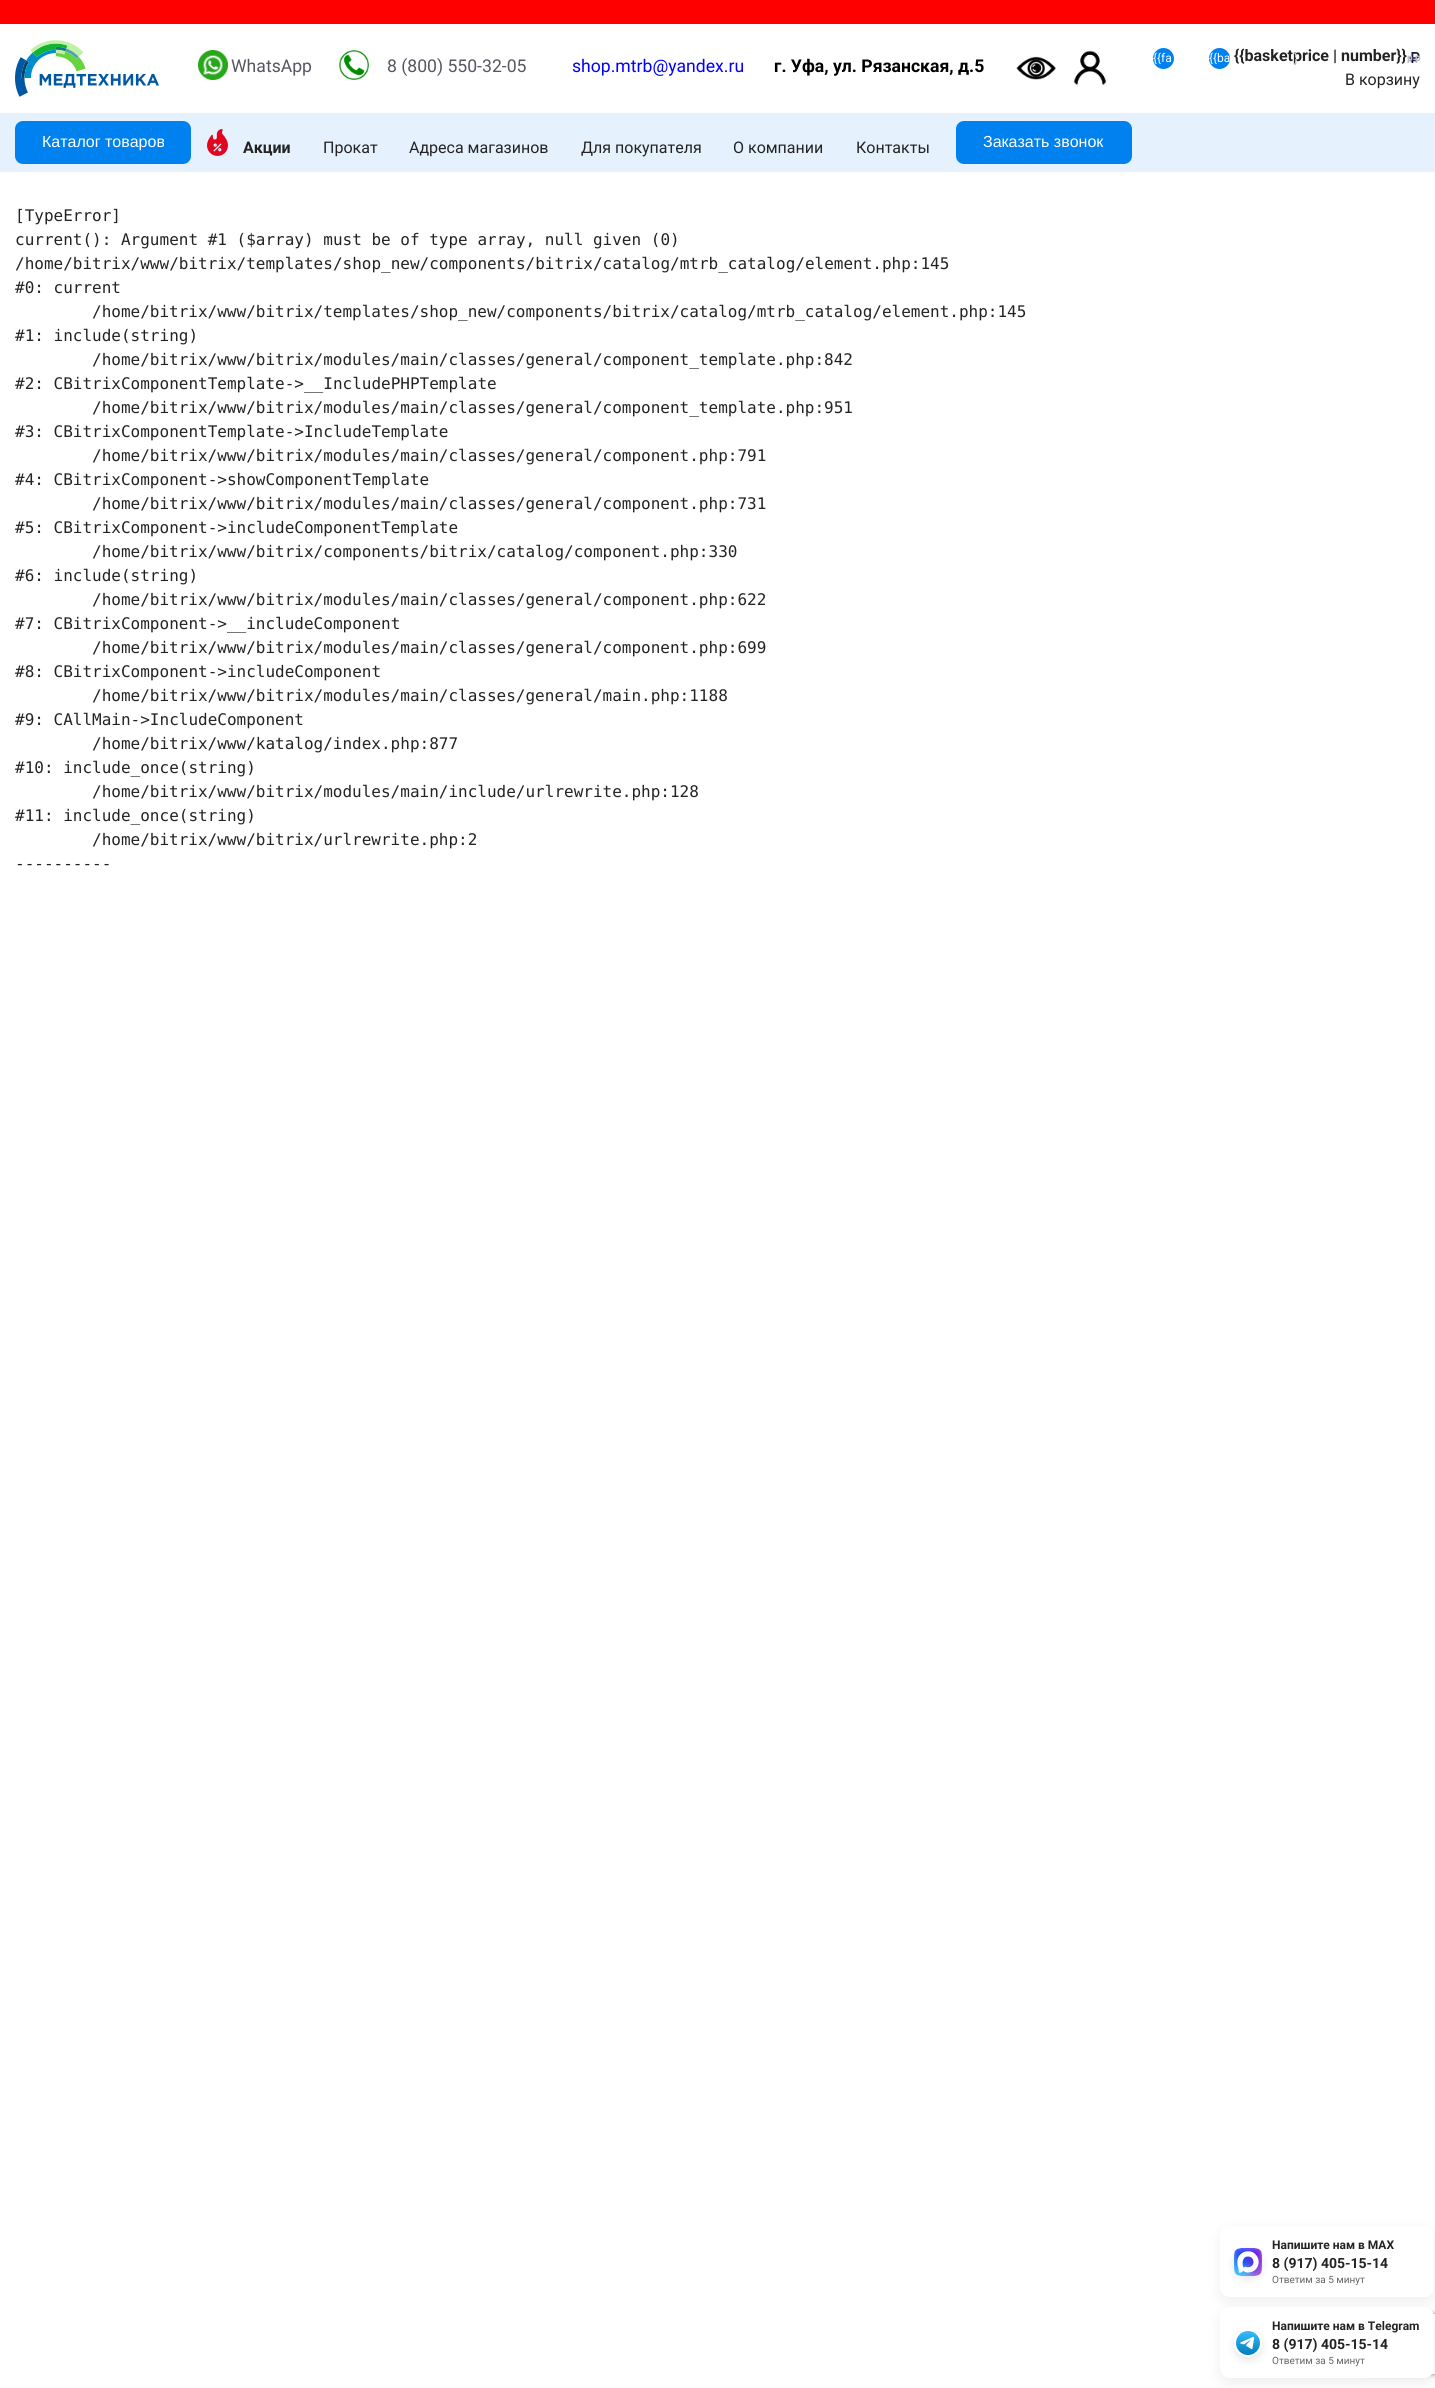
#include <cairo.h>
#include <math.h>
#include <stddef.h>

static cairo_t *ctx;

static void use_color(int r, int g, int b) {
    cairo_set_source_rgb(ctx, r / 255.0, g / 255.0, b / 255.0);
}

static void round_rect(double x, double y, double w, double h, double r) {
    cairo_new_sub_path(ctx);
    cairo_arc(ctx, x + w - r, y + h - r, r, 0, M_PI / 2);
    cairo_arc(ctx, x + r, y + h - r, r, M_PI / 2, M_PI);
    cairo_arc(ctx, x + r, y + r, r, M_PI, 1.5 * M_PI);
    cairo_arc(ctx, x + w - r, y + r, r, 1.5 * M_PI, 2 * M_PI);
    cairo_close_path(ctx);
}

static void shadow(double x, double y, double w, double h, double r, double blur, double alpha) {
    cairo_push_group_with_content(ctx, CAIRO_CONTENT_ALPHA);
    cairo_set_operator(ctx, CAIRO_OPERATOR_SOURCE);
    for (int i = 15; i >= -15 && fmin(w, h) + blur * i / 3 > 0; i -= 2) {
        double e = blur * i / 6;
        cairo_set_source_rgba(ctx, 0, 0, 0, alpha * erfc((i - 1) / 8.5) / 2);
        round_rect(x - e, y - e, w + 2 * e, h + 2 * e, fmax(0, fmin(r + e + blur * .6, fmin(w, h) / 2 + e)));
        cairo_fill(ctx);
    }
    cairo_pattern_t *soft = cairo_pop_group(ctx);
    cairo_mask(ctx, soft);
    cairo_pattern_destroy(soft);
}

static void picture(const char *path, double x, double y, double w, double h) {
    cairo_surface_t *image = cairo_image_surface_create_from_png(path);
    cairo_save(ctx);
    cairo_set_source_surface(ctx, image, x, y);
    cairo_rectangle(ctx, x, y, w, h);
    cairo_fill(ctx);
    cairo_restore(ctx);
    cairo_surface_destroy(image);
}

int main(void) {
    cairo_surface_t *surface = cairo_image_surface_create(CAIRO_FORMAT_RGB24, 1435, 2388);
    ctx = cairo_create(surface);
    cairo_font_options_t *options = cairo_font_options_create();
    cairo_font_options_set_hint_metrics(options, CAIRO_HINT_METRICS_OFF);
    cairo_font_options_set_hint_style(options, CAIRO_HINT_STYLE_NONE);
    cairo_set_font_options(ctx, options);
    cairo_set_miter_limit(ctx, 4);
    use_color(255, 255, 255);
    cairo_paint(ctx);
    use_color(255, 0, 0);
    cairo_rectangle(ctx, 0, 0, 1435, 24);
    cairo_fill(ctx);
    picture("img1.png", 15, 40, 144, 57);
    picture("img2.png", 198, 50, 30, 30);
    cairo_select_font_face(ctx, "Roboto", CAIRO_FONT_SLANT_NORMAL, CAIRO_FONT_WEIGHT_NORMAL);
    cairo_set_font_size(ctx, 17.6);
    use_color(85, 87, 97);
    cairo_move_to(ctx, 231, 72);
    cairo_show_text(ctx, "WhatsApp");
    picture("img3.png", 339, 50, 30, 30);
    cairo_move_to(ctx, 387, 72);
    cairo_show_text(ctx, "8 (800) 550-32-05");
    use_color(0, 0, 255);
    cairo_move_to(ctx, 572, 72);
    cairo_show_text(ctx, "shop.mtrb@yandex.ru");
    cairo_select_font_face(ctx, "Roboto", CAIRO_FONT_SLANT_NORMAL, CAIRO_FONT_WEIGHT_BOLD);
    use_color(0, 0, 0);
    cairo_move_to(ctx, 774, 72);
    cairo_show_text(ctx, "г. Уфа, ул. Рязанская, д.5");
    picture("img4.png", 1016, 56, 40, 24);
    picture("img5.png", 1073, 50, 34, 36);
    use_color(0, 129, 240);
    cairo_arc(ctx, 1163.5, 58.5, 10.5, 0, 2 * M_PI);
    cairo_fill(ctx);
    cairo_select_font_face(ctx, "Roboto", CAIRO_FONT_SLANT_NORMAL, CAIRO_FONT_WEIGHT_NORMAL);
    cairo_set_font_size(ctx, 12);
    use_color(255, 255, 255);
    cairo_move_to(ctx, 1153, 62);
    cairo_show_text(ctx, "{{fa");
    cairo_select_font_face(ctx, "Roboto", CAIRO_FONT_SLANT_NORMAL, CAIRO_FONT_WEIGHT_BOLD);
    cairo_set_font_size(ctx, 16);
    use_color(35, 35, 35);
    cairo_move_to(ctx, 1234, 61);
    cairo_show_text(ctx, "{{basketprice | number}}");
    picture("img6.png", 1409, 52, 11, 11);
    cairo_set_font_size(ctx, 10);
    use_color(189, 189, 200);
    cairo_move_to(ctx, 1407, 61);
    cairo_show_text(ctx, "p p");
    cairo_select_font_face(ctx, "Roboto", CAIRO_FONT_SLANT_NORMAL, CAIRO_FONT_WEIGHT_NORMAL);
    cairo_set_font_size(ctx, 16);
    use_color(35, 35, 35);
    cairo_move_to(ctx, 1345, 85);
    cairo_show_text(ctx, "В корзину");
    use_color(0, 129, 240);
    cairo_new_path(ctx);
    cairo_arc(ctx, 1219.5, 58.5, 10.5, 0, 2 * M_PI);
    cairo_fill(ctx);
    cairo_set_font_size(ctx, 12);
    use_color(255, 255, 255);
    cairo_move_to(ctx, 1209, 62);
    cairo_show_text(ctx, "{{ba");
    cairo_move_to(ctx, 1294, 62);
    cairo_show_text(ctx, "}");
    use_color(229, 242, 253);
    cairo_rectangle(ctx, 0, 113, 1435, 59);
    cairo_fill(ctx);
    use_color(0, 129, 240);
    round_rect(15, 121, 176, 43, 8);
    cairo_fill(ctx);
    cairo_select_font_face(ctx, "Liberation Sans", CAIRO_FONT_SLANT_NORMAL, CAIRO_FONT_WEIGHT_NORMAL);
    cairo_set_font_size(ctx, 16);
    use_color(255, 255, 255);
    cairo_move_to(ctx, 42, 147);
    cairo_show_text(ctx, "Каталог товаров");
    picture("img7.png", 207, 129, 21, 27);
    cairo_select_font_face(ctx, "Roboto", CAIRO_FONT_SLANT_NORMAL, CAIRO_FONT_WEIGHT_BOLD);
    use_color(35, 35, 35);
    cairo_move_to(ctx, 243, 153);
    cairo_show_text(ctx, "Акции");
    cairo_select_font_face(ctx, "Roboto", CAIRO_FONT_SLANT_NORMAL, CAIRO_FONT_WEIGHT_NORMAL);
    cairo_move_to(ctx, 323, 153);
    cairo_show_text(ctx, "Прокат");
    cairo_move_to(ctx, 409, 153);
    cairo_show_text(ctx, "Адреса магазинов");
    cairo_move_to(ctx, 581, 153);
    cairo_show_text(ctx, "Для покупателя");
    cairo_move_to(ctx, 733, 153);
    cairo_show_text(ctx, "О компании");
    cairo_move_to(ctx, 856, 153);
    cairo_show_text(ctx, "Контакты");
    use_color(0, 129, 240);
    round_rect(956, 121, 176, 43, 8);
    cairo_fill(ctx);
    cairo_select_font_face(ctx, "Liberation Sans", CAIRO_FONT_SLANT_NORMAL, CAIRO_FONT_WEIGHT_NORMAL);
    use_color(255, 255, 255);
    cairo_move_to(ctx, 983, 147);
    cairo_show_text(ctx, "Заказать звонок");
    cairo_select_font_face(ctx, "DejaVu Sans Mono", CAIRO_FONT_SLANT_NORMAL, CAIRO_FONT_WEIGHT_NORMAL);
    use_color(35, 35, 35);
    cairo_move_to(ctx, 15, 221);
    cairo_show_text(ctx, "[TypeError]");
    cairo_move_to(ctx, 15, 245);
    cairo_show_text(ctx, "current(): Argument #1 ($array) must be of type array, null given (0)");
    cairo_move_to(ctx, 15, 269);
    cairo_show_text(ctx, "/home/bitrix/www/bitrix/templates/shop_new/components/bitrix/catalog/mtrb_catalog/element.php:145");
    cairo_move_to(ctx, 15, 293);
    cairo_show_text(ctx, "#0: current");
    cairo_move_to(ctx, 92, 317);
    cairo_show_text(ctx, "/home/bitrix/www/bitrix/templates/shop_new/components/bitrix/catalog/mtrb_catalog/element.php:145");
    cairo_move_to(ctx, 15, 341);
    cairo_show_text(ctx, "#1: include(string)");
    cairo_move_to(ctx, 92, 365);
    cairo_show_text(ctx, "/home/bitrix/www/bitrix/modules/main/classes/general/component_template.php:842");
    cairo_move_to(ctx, 15, 389);
    cairo_show_text(ctx, "#2: CBitrixComponentTemplate->__IncludePHPTemplate");
    cairo_move_to(ctx, 92, 413);
    cairo_show_text(ctx, "/home/bitrix/www/bitrix/modules/main/classes/general/component_template.php:951");
    cairo_move_to(ctx, 15, 437);
    cairo_show_text(ctx, "#3: CBitrixComponentTemplate->IncludeTemplate");
    cairo_move_to(ctx, 92, 461);
    cairo_show_text(ctx, "/home/bitrix/www/bitrix/modules/main/classes/general/component.php:791");
    cairo_move_to(ctx, 15, 485);
    cairo_show_text(ctx, "#4: CBitrixComponent->showComponentTemplate");
    cairo_move_to(ctx, 92, 509);
    cairo_show_text(ctx, "/home/bitrix/www/bitrix/modules/main/classes/general/component.php:731");
    cairo_move_to(ctx, 15, 533);
    cairo_show_text(ctx, "#5: CBitrixComponent->includeComponentTemplate");
    cairo_move_to(ctx, 92, 557);
    cairo_show_text(ctx, "/home/bitrix/www/bitrix/components/bitrix/catalog/component.php:330");
    cairo_move_to(ctx, 15, 581);
    cairo_show_text(ctx, "#6: include(string)");
    cairo_move_to(ctx, 92, 605);
    cairo_show_text(ctx, "/home/bitrix/www/bitrix/modules/main/classes/general/component.php:622");
    cairo_move_to(ctx, 15, 629);
    cairo_show_text(ctx, "#7: CBitrixComponent->__includeComponent");
    cairo_move_to(ctx, 92, 653);
    cairo_show_text(ctx, "/home/bitrix/www/bitrix/modules/main/classes/general/component.php:699");
    cairo_move_to(ctx, 15, 677);
    cairo_show_text(ctx, "#8: CBitrixComponent->includeComponent");
    cairo_move_to(ctx, 92, 701);
    cairo_show_text(ctx, "/home/bitrix/www/bitrix/modules/main/classes/general/main.php:1188");
    cairo_move_to(ctx, 15, 725);
    cairo_show_text(ctx, "#9: CAllMain->IncludeComponent");
    cairo_move_to(ctx, 92, 749);
    cairo_show_text(ctx, "/home/bitrix/www/katalog/index.php:877");
    cairo_move_to(ctx, 15, 773);
    cairo_show_text(ctx, "#10: include_once(string)");
    cairo_move_to(ctx, 92, 797);
    cairo_show_text(ctx, "/home/bitrix/www/bitrix/modules/main/include/urlrewrite.php:128");
    cairo_move_to(ctx, 15, 821);
    cairo_show_text(ctx, "#11: include_once(string)");
    cairo_move_to(ctx, 92, 845);
    cairo_show_text(ctx, "/home/bitrix/www/bitrix/urlrewrite.php:2");
    cairo_move_to(ctx, 15, 869);
    cairo_show_text(ctx, "----------");
    use_color(0, 0, 0);
    shadow(1220, 2231, 214, 71, 10, 7.5, 0.07);
    use_color(255, 255, 255);
    round_rect(1220, 2226, 214, 71, 10);
    cairo_fill(ctx);
    use_color(0, 0, 0);
    shadow(1234, 2251, 28, 28, 14, 4, 0.1);
    picture("img8.png", 1234, 2248, 28, 28);
    cairo_select_font_face(ctx, "Roboto", CAIRO_FONT_SLANT_NORMAL, CAIRO_FONT_WEIGHT_BOLD);
    cairo_set_font_size(ctx, 12);
    use_color(35, 35, 35);
    cairo_move_to(ctx, 1272, 2249);
    cairo_show_text(ctx, "Напишите нам в MAX");
    cairo_set_font_size(ctx, 14);
    cairo_move_to(ctx, 1272, 2268);
    cairo_show_text(ctx, "8 (917) 405-15-14");
    cairo_select_font_face(ctx, "Roboto", CAIRO_FONT_SLANT_NORMAL, CAIRO_FONT_WEIGHT_NORMAL);
    cairo_set_font_size(ctx, 10);
    use_color(100, 100, 100);
    cairo_move_to(ctx, 1272, 2283);
    cairo_show_text(ctx, "Ответим за 5 минут");
    use_color(0, 0, 0);
    shadow(1220, 2312, 214, 71, 10, 7.5, 0.07);
    cairo_save(ctx);
    cairo_set_fill_rule(ctx, CAIRO_FILL_RULE_EVEN_ODD);
    cairo_new_path(ctx);
    cairo_move_to(ctx, 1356, 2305);
    cairo_line_to(ctx, 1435, 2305);
    cairo_line_to(ctx, 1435, 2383);
    cairo_line_to(ctx, 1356, 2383);
    cairo_close_path(ctx);
    cairo_move_to(ctx, 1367, 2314);
    cairo_line_to(ctx, 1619, 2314);
    cairo_curve_to(ctx, 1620, 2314, 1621, 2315, 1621, 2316);
    cairo_line_to(ctx, 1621, 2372);
    cairo_curve_to(ctx, 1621, 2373, 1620, 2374, 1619, 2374);
    cairo_line_to(ctx, 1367, 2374);
    cairo_curve_to(ctx, 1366, 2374, 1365, 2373, 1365, 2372);
    cairo_line_to(ctx, 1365, 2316);
    cairo_curve_to(ctx, 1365, 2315, 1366, 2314, 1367, 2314);
    cairo_close_path(ctx);
    cairo_clip(ctx);
    use_color(128, 128, 128);
    shadow(1365, 2314, 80, 60, 2, 2.5, 1);
    cairo_restore(ctx);
    use_color(255, 255, 255);
    round_rect(1220, 2307, 214, 71, 10);
    cairo_fill(ctx);
    cairo_save(ctx);
    cairo_set_fill_rule(ctx, CAIRO_FILL_RULE_EVEN_ODD);
    cairo_new_path(ctx);
    cairo_move_to(ctx, 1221, 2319);
    cairo_line_to(ctx, 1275, 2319);
    cairo_line_to(ctx, 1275, 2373);
    cairo_line_to(ctx, 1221, 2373);
    cairo_close_path(ctx);
    cairo_move_to(ctx, 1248, 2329);
    cairo_curve_to(ctx, 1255.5, 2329, 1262, 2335.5, 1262, 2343);
    cairo_curve_to(ctx, 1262, 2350.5, 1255.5, 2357, 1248, 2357);
    cairo_curve_to(ctx, 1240.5, 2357, 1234, 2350.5, 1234, 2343);
    cairo_curve_to(ctx, 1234, 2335.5, 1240.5, 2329, 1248, 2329);
    cairo_close_path(ctx);
    cairo_clip(ctx);
    use_color(0, 0, 0);
    shadow(1234, 2332, 28, 28, 14, 4, 0.1);
    cairo_restore(ctx);
    picture("img9.png", 1236, 2331, 24, 24);
    cairo_select_font_face(ctx, "Roboto", CAIRO_FONT_SLANT_NORMAL, CAIRO_FONT_WEIGHT_BOLD);
    cairo_set_font_size(ctx, 12);
    use_color(35, 35, 35);
    cairo_move_to(ctx, 1272, 2330);
    cairo_show_text(ctx, "Напишите нам в Telegram");
    cairo_set_font_size(ctx, 14);
    cairo_move_to(ctx, 1272, 2349);
    cairo_show_text(ctx, "8 (917) 405-15-14");
    cairo_select_font_face(ctx, "Roboto", CAIRO_FONT_SLANT_NORMAL, CAIRO_FONT_WEIGHT_NORMAL);
    cairo_set_font_size(ctx, 10);
    use_color(100, 100, 100);
    cairo_move_to(ctx, 1272, 2364);
    cairo_show_text(ctx, "Ответим за 5 минут");
    cairo_surface_write_to_png(surface, "result.png");
    cairo_font_options_destroy(options);
    cairo_destroy(ctx);
    cairo_surface_destroy(surface);
    return 0;
}
